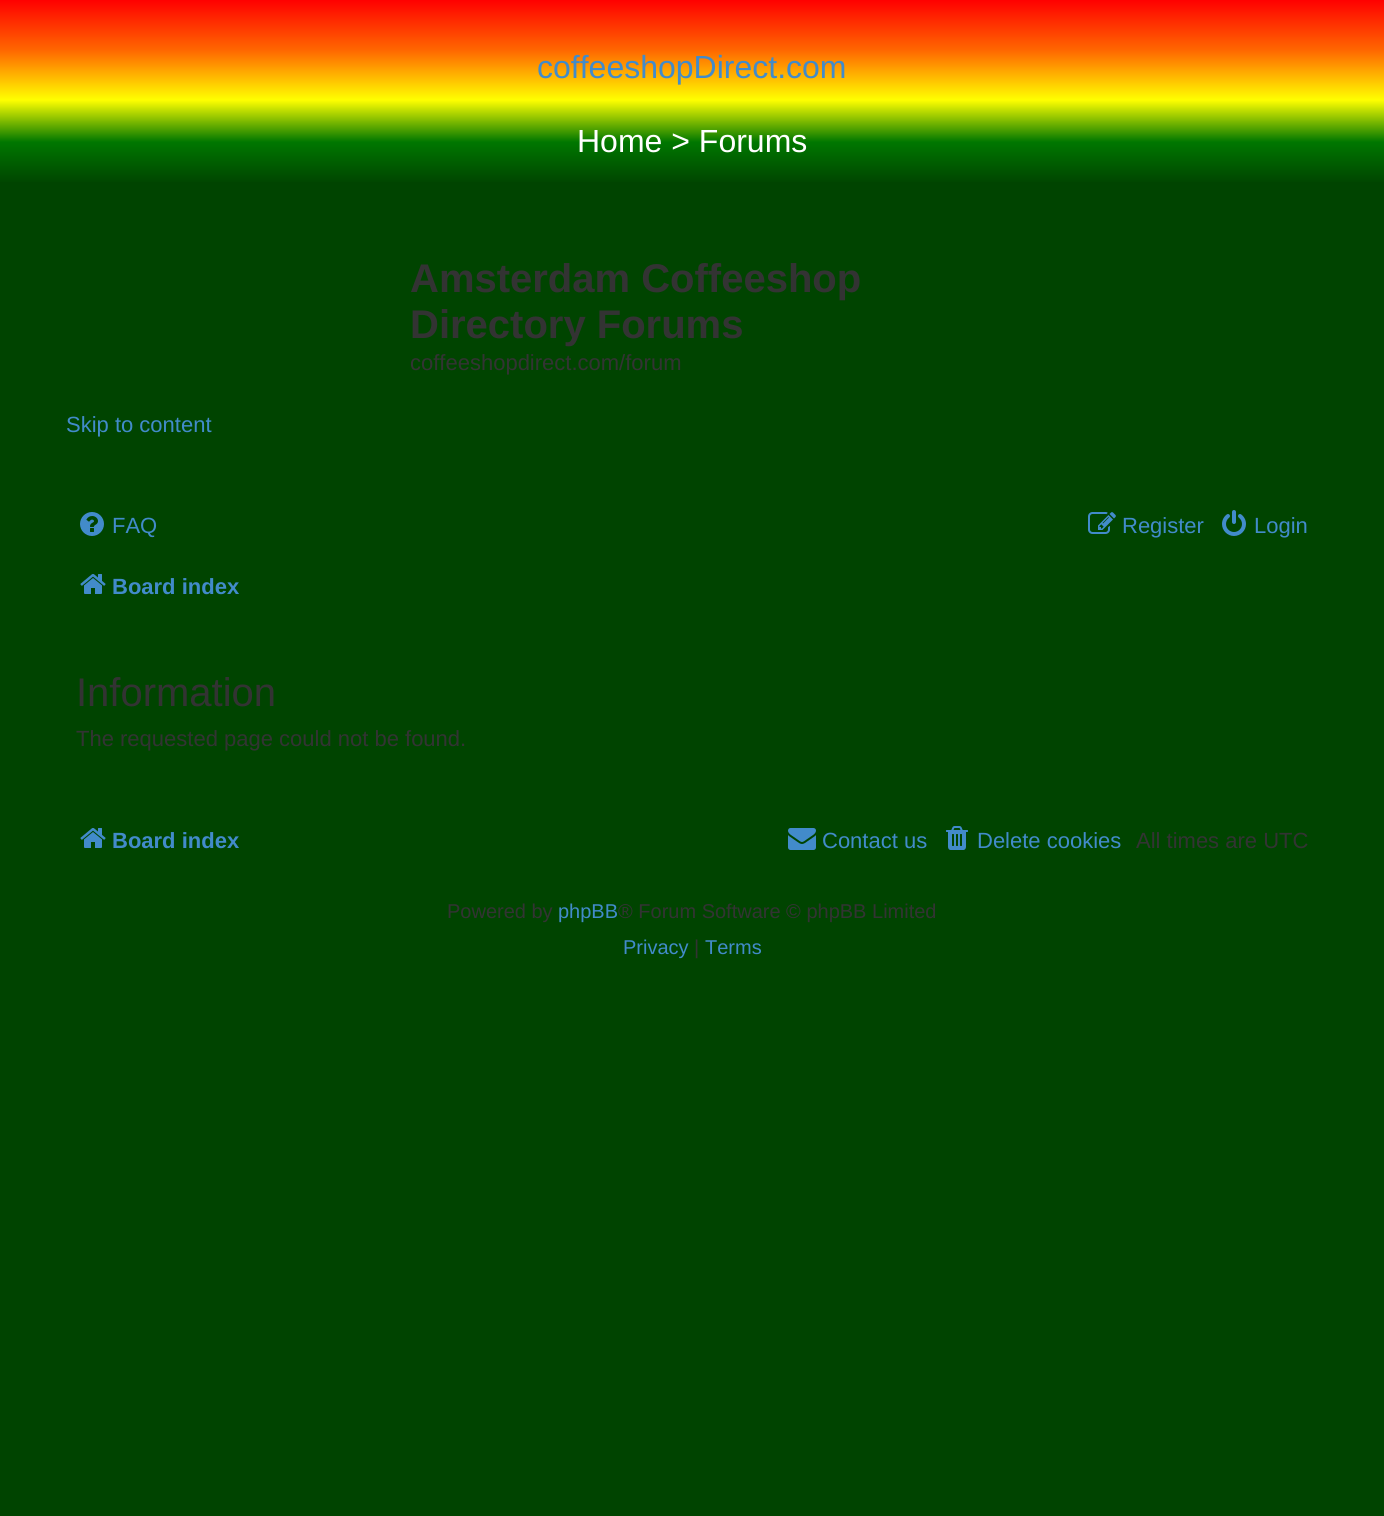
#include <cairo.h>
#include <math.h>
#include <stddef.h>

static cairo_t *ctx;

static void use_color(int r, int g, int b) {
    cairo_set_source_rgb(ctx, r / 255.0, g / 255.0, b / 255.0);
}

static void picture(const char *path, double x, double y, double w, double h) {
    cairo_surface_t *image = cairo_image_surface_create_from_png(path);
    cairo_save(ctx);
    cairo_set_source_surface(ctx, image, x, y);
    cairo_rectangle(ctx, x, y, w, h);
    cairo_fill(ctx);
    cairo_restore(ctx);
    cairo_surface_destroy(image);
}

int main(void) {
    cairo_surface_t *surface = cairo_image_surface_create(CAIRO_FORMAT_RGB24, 1384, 1516);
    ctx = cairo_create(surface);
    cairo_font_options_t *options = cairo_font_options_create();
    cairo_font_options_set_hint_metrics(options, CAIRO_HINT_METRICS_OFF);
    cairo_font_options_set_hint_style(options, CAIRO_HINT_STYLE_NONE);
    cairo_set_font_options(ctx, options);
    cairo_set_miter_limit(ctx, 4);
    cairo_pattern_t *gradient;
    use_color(0, 68, 0);
    cairo_paint(ctx);
    gradient = cairo_pattern_create_linear(692, 0, 692, 100);
    cairo_pattern_add_color_stop_rgba(gradient, 0, 1, 0, 0, 1);
    cairo_pattern_add_color_stop_rgba(gradient, 0.5, 1, 0.4, 0, 1);
    cairo_pattern_add_color_stop_rgba(gradient, 1, 1, 1, 0, 1);
    cairo_set_source(ctx, gradient);
    cairo_pattern_destroy(gradient);
    cairo_rectangle(ctx, 0, 0, 1384, 100);
    cairo_fill(ctx);
    cairo_select_font_face(ctx, "Liberation Sans", CAIRO_FONT_SLANT_NORMAL, CAIRO_FONT_WEIGHT_NORMAL);
    cairo_set_font_size(ctx, 32);
    use_color(66, 139, 202);
    cairo_move_to(ctx, 537, 78);
    cairo_show_text(ctx, "coffeeshopDirect.com");
    gradient = cairo_pattern_create_linear(692, 100, 692, 184);
    cairo_pattern_add_color_stop_rgba(gradient, 0, 1, 1, 0, 1);
    cairo_pattern_add_color_stop_rgba(gradient, 0.5, 0, 0.467, 0, 1);
    cairo_pattern_add_color_stop_rgba(gradient, 1, 0, 0.267, 0, 1);
    cairo_set_source(ctx, gradient);
    cairo_pattern_destroy(gradient);
    cairo_rectangle(ctx, 0, 100, 1384, 82);
    cairo_fill(ctx);
    use_color(255, 255, 255);
    cairo_move_to(ctx, 577, 152);
    cairo_show_text(ctx, "Home > Forums");
    cairo_select_font_face(ctx, "Liberation Sans", CAIRO_FONT_SLANT_NORMAL, CAIRO_FONT_WEIGHT_BOLD);
    cairo_set_font_size(ctx, 40);
    use_color(51, 51, 51);
    cairo_move_to(ctx, 410, 292);
    cairo_show_text(ctx, "Amsterdam Coffeeshop");
    cairo_move_to(ctx, 410, 338);
    cairo_show_text(ctx, "Directory Forums");
    cairo_select_font_face(ctx, "Liberation Sans", CAIRO_FONT_SLANT_NORMAL, CAIRO_FONT_WEIGHT_NORMAL);
    cairo_set_font_size(ctx, 22);
    cairo_move_to(ctx, 410, 370);
    cairo_show_text(ctx, "coffeeshopdirect.com/forum");
    use_color(66, 139, 202);
    cairo_move_to(ctx, 66, 432);
    cairo_show_text(ctx, "Skip to content");
    picture("img1.png", 80, 512, 24, 24);
    cairo_move_to(ctx, 112, 533);
    cairo_show_text(ctx, "FAQ");
    picture("img2.png", 1088, 512, 28, 22);
    cairo_move_to(ctx, 1122, 533);
    cairo_show_text(ctx, "Register");
    picture("img3.png", 1222, 510, 24, 26);
    cairo_move_to(ctx, 1254, 533);
    cairo_show_text(ctx, "Login");
    picture("img4.png", 80, 574, 26, 20);
    cairo_select_font_face(ctx, "Liberation Sans", CAIRO_FONT_SLANT_NORMAL, CAIRO_FONT_WEIGHT_BOLD);
    cairo_move_to(ctx, 112, 594);
    cairo_show_text(ctx, "Board index");
    cairo_select_font_face(ctx, "Liberation Sans", CAIRO_FONT_SLANT_NORMAL, CAIRO_FONT_WEIGHT_NORMAL);
    cairo_set_font_size(ctx, 40);
    use_color(51, 51, 51);
    cairo_move_to(ctx, 76, 706);
    cairo_show_text(ctx, "Information");
    cairo_set_font_size(ctx, 22);
    cairo_move_to(ctx, 76, 746);
    cairo_show_text(ctx, "The requested page could not be found.");
    picture("img4.png", 80, 828, 26, 20);
    cairo_select_font_face(ctx, "Liberation Sans", CAIRO_FONT_SLANT_NORMAL, CAIRO_FONT_WEIGHT_BOLD);
    use_color(66, 139, 202);
    cairo_move_to(ctx, 112, 848);
    cairo_show_text(ctx, "Board index");
    picture("img5.png", 788, 828, 28, 22);
    cairo_select_font_face(ctx, "Liberation Sans", CAIRO_FONT_SLANT_NORMAL, CAIRO_FONT_WEIGHT_NORMAL);
    cairo_move_to(ctx, 822, 848);
    cairo_show_text(ctx, "Contact us");
    picture("img6.png", 946, 826, 22, 24);
    cairo_move_to(ctx, 977, 848);
    cairo_show_text(ctx, "Delete cookies");
    use_color(51, 51, 51);
    cairo_move_to(ctx, 1136, 848);
    cairo_show_text(ctx, "All times are UTC");
    cairo_set_font_size(ctx, 20);
    cairo_move_to(ctx, 447, 918);
    cairo_show_text(ctx, "Powered by");
    use_color(66, 139, 202);
    cairo_move_to(ctx, 558, 918);
    cairo_show_text(ctx, "phpBB");
    use_color(51, 51, 51);
    cairo_move_to(ctx, 618, 918);
    cairo_show_text(ctx, "® Forum Software © phpBB Limited");
    use_color(66, 139, 202);
    cairo_move_to(ctx, 623, 954);
    cairo_show_text(ctx, "Privacy");
    use_color(51, 51, 51);
    cairo_move_to(ctx, 694, 954);
    cairo_show_text(ctx, "|");
    use_color(66, 139, 202);
    cairo_move_to(ctx, 705, 954);
    cairo_show_text(ctx, "Terms");
    cairo_surface_write_to_png(surface, "result.png");
    cairo_font_options_destroy(options);
    cairo_destroy(ctx);
    cairo_surface_destroy(surface);
    return 0;
}
